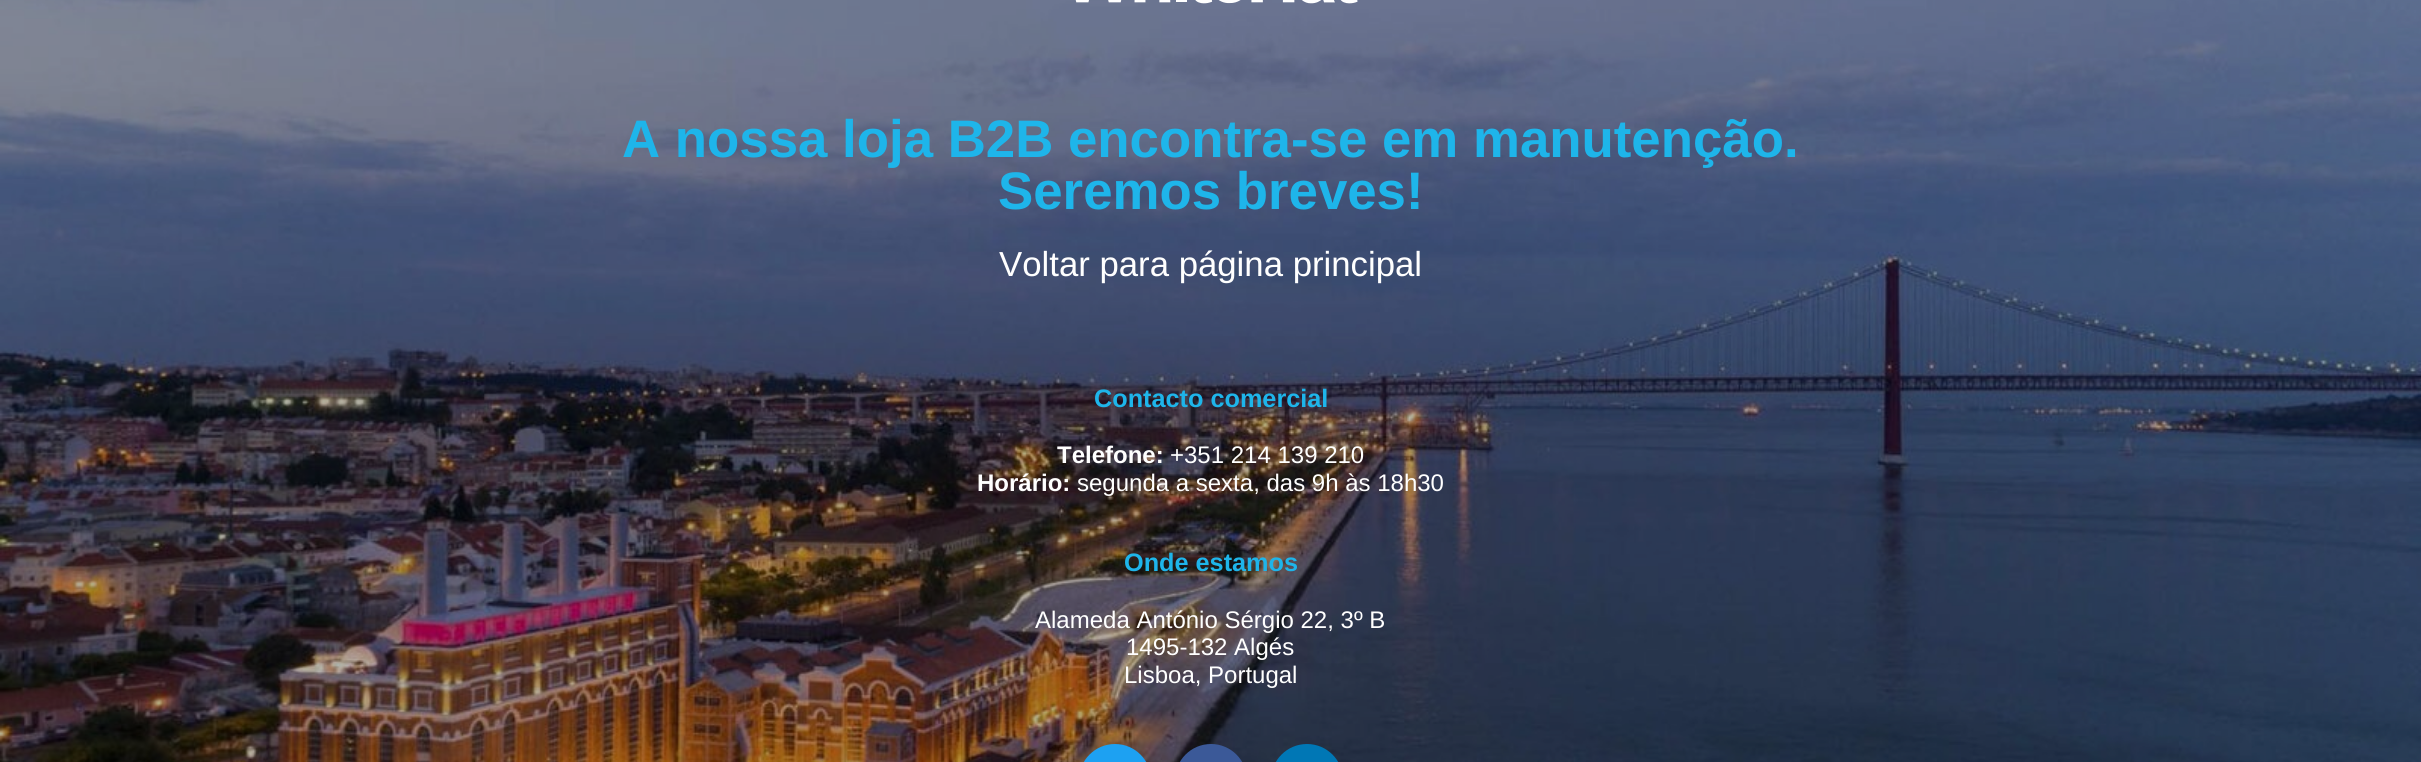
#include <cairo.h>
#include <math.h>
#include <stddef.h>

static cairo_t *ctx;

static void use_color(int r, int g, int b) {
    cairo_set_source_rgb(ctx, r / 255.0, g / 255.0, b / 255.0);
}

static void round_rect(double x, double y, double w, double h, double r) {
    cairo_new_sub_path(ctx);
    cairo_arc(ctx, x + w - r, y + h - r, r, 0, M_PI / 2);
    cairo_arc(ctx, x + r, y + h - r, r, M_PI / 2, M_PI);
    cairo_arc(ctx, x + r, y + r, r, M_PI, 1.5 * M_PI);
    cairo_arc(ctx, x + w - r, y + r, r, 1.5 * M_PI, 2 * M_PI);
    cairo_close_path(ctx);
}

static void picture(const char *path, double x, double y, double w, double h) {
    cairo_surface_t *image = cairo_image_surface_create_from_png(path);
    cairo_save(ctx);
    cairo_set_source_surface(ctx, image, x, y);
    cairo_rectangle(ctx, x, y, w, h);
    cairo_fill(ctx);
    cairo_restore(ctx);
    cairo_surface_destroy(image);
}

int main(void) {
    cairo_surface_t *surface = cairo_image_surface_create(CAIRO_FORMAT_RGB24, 2421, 762);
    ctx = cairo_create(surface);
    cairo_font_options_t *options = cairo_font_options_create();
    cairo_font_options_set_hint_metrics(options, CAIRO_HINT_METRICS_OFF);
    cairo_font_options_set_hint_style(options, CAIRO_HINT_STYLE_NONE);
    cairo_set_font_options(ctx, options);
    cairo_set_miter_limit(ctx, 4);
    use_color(255, 255, 255);
    cairo_paint(ctx);
    picture("img1.png", 0, 0, 2421, 762);
    picture("img2.png", 1075, 0, 283, 4);
    cairo_select_font_face(ctx, "Liberation Sans", CAIRO_FONT_SLANT_NORMAL, CAIRO_FONT_WEIGHT_BOLD);
    cairo_set_font_size(ctx, 52.8);
    use_color(30, 181, 234);
    cairo_move_to(ctx, 622, 157);
    cairo_show_text(ctx, "A nossa loja B2B encontra-se em manutenção.");
    cairo_move_to(ctx, 998, 209);
    cairo_show_text(ctx, "Seremos breves!");
    cairo_select_font_face(ctx, "Liberation Sans", CAIRO_FONT_SLANT_NORMAL, CAIRO_FONT_WEIGHT_NORMAL);
    cairo_set_font_size(ctx, 34.75);
    use_color(255, 255, 255);
    cairo_move_to(ctx, 999, 276);
    cairo_show_text(ctx, "Voltar para página principal");
    cairo_select_font_face(ctx, "Liberation Sans", CAIRO_FONT_SLANT_NORMAL, CAIRO_FONT_WEIGHT_BOLD);
    cairo_set_font_size(ctx, 25.25);
    use_color(30, 181, 234);
    cairo_move_to(ctx, 1094, 407);
    cairo_show_text(ctx, "Contacto comercial");
    cairo_set_font_size(ctx, 24);
    use_color(255, 255, 255);
    cairo_move_to(ctx, 1057, 463);
    cairo_show_text(ctx, "Telefone:");
    cairo_select_font_face(ctx, "Liberation Sans", CAIRO_FONT_SLANT_NORMAL, CAIRO_FONT_WEIGHT_NORMAL);
    cairo_move_to(ctx, 1170, 463);
    cairo_show_text(ctx, "+351 214 139 210");
    cairo_select_font_face(ctx, "Liberation Sans", CAIRO_FONT_SLANT_NORMAL, CAIRO_FONT_WEIGHT_BOLD);
    cairo_move_to(ctx, 977, 491);
    cairo_show_text(ctx, "Horário:");
    cairo_select_font_face(ctx, "Liberation Sans", CAIRO_FONT_SLANT_NORMAL, CAIRO_FONT_WEIGHT_NORMAL);
    cairo_move_to(ctx, 1077, 491);
    cairo_show_text(ctx, "segunda a sexta, das 9h às 18h30");
    cairo_select_font_face(ctx, "Liberation Sans", CAIRO_FONT_SLANT_NORMAL, CAIRO_FONT_WEIGHT_BOLD);
    cairo_set_font_size(ctx, 25.25);
    use_color(30, 181, 234);
    cairo_move_to(ctx, 1124, 571);
    cairo_show_text(ctx, "Onde estamos");
    cairo_select_font_face(ctx, "Liberation Sans", CAIRO_FONT_SLANT_NORMAL, CAIRO_FONT_WEIGHT_NORMAL);
    cairo_set_font_size(ctx, 24);
    use_color(255, 255, 255);
    cairo_move_to(ctx, 1035, 628);
    cairo_show_text(ctx, "Alameda António Sérgio 22, 3º B");
    cairo_move_to(ctx, 1126, 655);
    cairo_show_text(ctx, "1495-132 Algés");
    cairo_move_to(ctx, 1124, 683);
    cairo_show_text(ctx, "Lisboa, Portugal");
    use_color(29, 161, 242);
    round_rect(1079, 744, 72, 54, 36);
    cairo_fill(ctx);
    use_color(59, 89, 152);
    round_rect(1175, 744, 72, 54, 36);
    cairo_fill(ctx);
    use_color(0, 119, 181);
    round_rect(1271, 744, 72, 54, 36);
    cairo_fill(ctx);
    cairo_surface_write_to_png(surface, "result.png");
    cairo_font_options_destroy(options);
    cairo_destroy(ctx);
    cairo_surface_destroy(surface);
    return 0;
}
